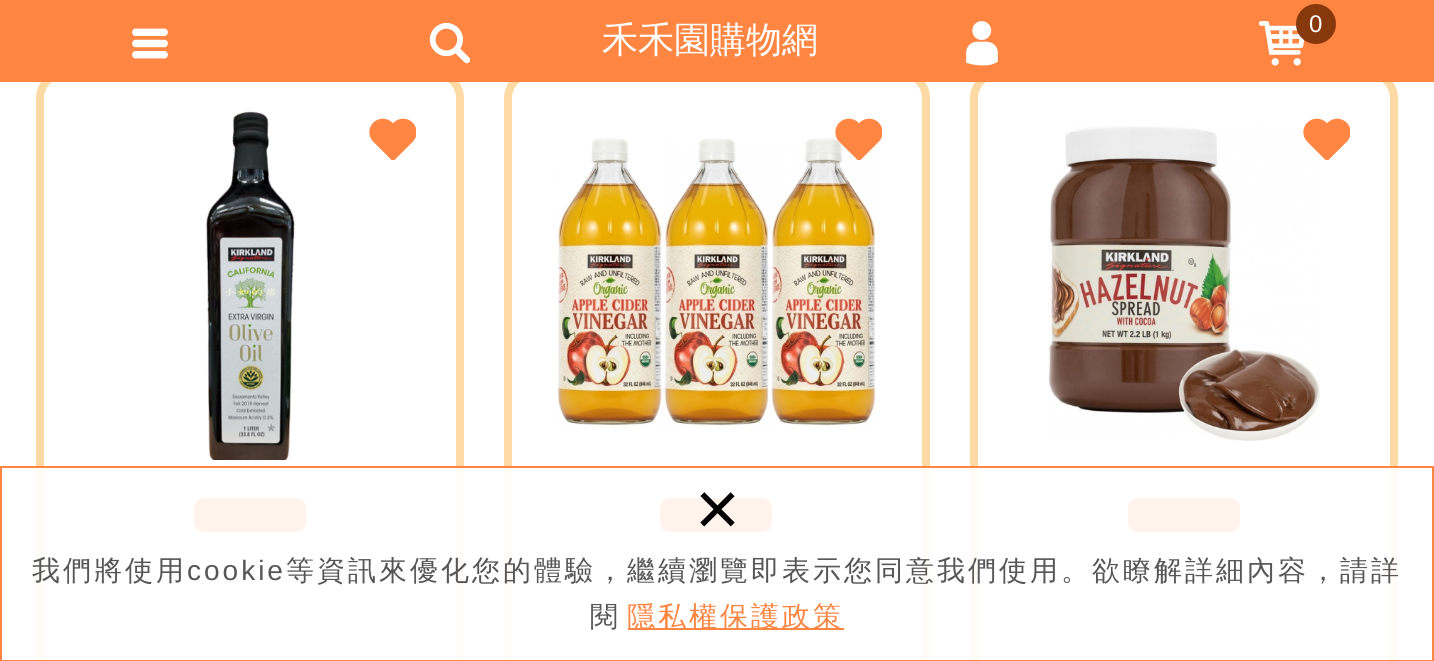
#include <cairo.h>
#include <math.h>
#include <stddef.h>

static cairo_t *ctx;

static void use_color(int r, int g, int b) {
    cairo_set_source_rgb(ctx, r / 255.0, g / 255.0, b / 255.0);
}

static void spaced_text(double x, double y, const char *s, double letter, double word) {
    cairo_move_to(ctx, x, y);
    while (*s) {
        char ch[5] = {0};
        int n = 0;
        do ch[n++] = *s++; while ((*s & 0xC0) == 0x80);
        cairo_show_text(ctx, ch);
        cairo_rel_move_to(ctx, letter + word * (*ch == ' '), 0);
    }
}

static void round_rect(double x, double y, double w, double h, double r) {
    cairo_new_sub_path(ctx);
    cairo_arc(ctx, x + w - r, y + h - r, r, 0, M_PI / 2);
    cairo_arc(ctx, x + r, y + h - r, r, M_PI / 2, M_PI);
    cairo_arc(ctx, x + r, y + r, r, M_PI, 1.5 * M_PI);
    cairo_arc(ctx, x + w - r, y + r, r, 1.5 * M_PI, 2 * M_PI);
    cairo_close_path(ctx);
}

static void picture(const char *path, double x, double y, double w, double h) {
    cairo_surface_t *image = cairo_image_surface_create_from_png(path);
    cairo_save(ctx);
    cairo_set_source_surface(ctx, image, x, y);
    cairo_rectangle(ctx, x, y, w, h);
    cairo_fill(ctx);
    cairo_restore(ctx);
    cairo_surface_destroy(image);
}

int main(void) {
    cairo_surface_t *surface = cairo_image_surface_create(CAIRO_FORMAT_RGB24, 1434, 661);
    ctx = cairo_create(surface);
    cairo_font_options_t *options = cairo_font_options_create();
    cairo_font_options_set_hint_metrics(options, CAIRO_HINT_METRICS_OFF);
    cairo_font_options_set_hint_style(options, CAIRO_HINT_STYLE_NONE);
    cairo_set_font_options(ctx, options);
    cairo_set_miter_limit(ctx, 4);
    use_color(255, 255, 255);
    cairo_paint(ctx);
    round_rect(40, 74, 420, 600, 24);
    use_color(253, 218, 164);
    cairo_set_line_width(ctx, 8);
    cairo_stroke(ctx);
    round_rect(508, 74, 418, 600, 24);
    cairo_stroke(ctx);
    round_rect(974, 74, 420, 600, 24);
    cairo_stroke(ctx);
    use_color(255, 134, 66);
    cairo_rectangle(ctx, 0, 80, 1434, 2);
    cairo_fill(ctx);
    cairo_rectangle(ctx, 0, 0, 602, 80);
    cairo_fill(ctx);
    picture("img1.png", 132, 28, 36, 31);
    cairo_rectangle(ctx, 602, 0, 832, 80);
    cairo_fill(ctx);
    picture("img2.png", 966, 21, 32, 45);
    picture("img3.png", 429, 22, 42, 42);
    cairo_select_font_face(ctx, "WenQuanYi Zen Hei Medium", CAIRO_FONT_SLANT_NORMAL, CAIRO_FONT_WEIGHT_NORMAL);
    cairo_set_font_size(ctx, 36);
    use_color(255, 255, 255);
    cairo_move_to(ctx, 602, 52);
    cairo_show_text(ctx, "禾禾園購物網");
    picture("img4.png", 1258, 21, 47, 45);
    use_color(135, 56, 12);
    cairo_arc(ctx, 1316, 24, 20, 0, 2 * M_PI);
    cairo_fill(ctx);
    cairo_select_font_face(ctx, "Liberation Sans", CAIRO_FONT_SLANT_NORMAL, CAIRO_FONT_WEIGHT_NORMAL);
    cairo_set_font_size(ctx, 24);
    use_color(255, 255, 255);
    cairo_move_to(ctx, 1309, 32);
    cairo_show_text(ctx, "0");
    picture("img5.png", 206, 111, 89, 349);
    picture("img6.png", 369, 118, 47, 42);
    use_color(255, 134, 66);
    round_rect(194, 498, 112, 34, 10);
    cairo_fill(ctx);
    picture("img8.png", 557, 138, 319, 289);
    picture("img7.png", 835, 118, 47, 42);
    round_rect(660, 498, 112, 34, 10);
    cairo_fill(ctx);
    picture("img9.png", 1048, 126, 272, 315);
    picture("img10.png", 1303, 118, 47, 42);
    round_rect(1128, 498, 112, 34, 10);
    cairo_fill(ctx);
    cairo_set_source_rgba(ctx, 1, 1, 1, 0.9);
    cairo_rectangle(ctx, 36, 468, 1362, 192);
    cairo_fill(ctx);
    cairo_rectangle(ctx, 1, 467, 1432, 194);
    use_color(255, 134, 66);
    cairo_set_line_width(ctx, 2);
    cairo_stroke(ctx);
    cairo_set_font_size(ctx, 77);
    use_color(0, 0, 0);
    cairo_move_to(ctx, 695, 535);
    cairo_show_text(ctx, "×");
    cairo_select_font_face(ctx, "WenQuanYi Zen Hei Medium", CAIRO_FONT_SLANT_NORMAL, CAIRO_FONT_WEIGHT_NORMAL);
    cairo_set_font_size(ctx, 28);
    use_color(86, 86, 86);
    spaced_text(32, 580, "我們將使用", 3, 0);
    cairo_select_font_face(ctx, "Liberation Sans", CAIRO_FONT_SLANT_NORMAL, CAIRO_FONT_WEIGHT_NORMAL);
    spaced_text(187, 580, "cookie", 3, 0);
    cairo_select_font_face(ctx, "WenQuanYi Zen Hei Medium", CAIRO_FONT_SLANT_NORMAL, CAIRO_FONT_WEIGHT_NORMAL);
    spaced_text(286, 580, "等資訊來優化您的體驗，繼續瀏覽即表示您同意我們使用。欲瞭解詳細內容，請詳", 3, 0);
    spaced_text(590, 626, "閱", 3, 0);
    use_color(255, 134, 66);
    cairo_rectangle(ctx, 628, 628, 216, 2);
    cairo_fill(ctx);
    spaced_text(627, 626, "隱私權保護政策", 3, 0);
    cairo_surface_write_to_png(surface, "result.png");
    cairo_font_options_destroy(options);
    cairo_destroy(ctx);
    cairo_surface_destroy(surface);
    return 0;
}
